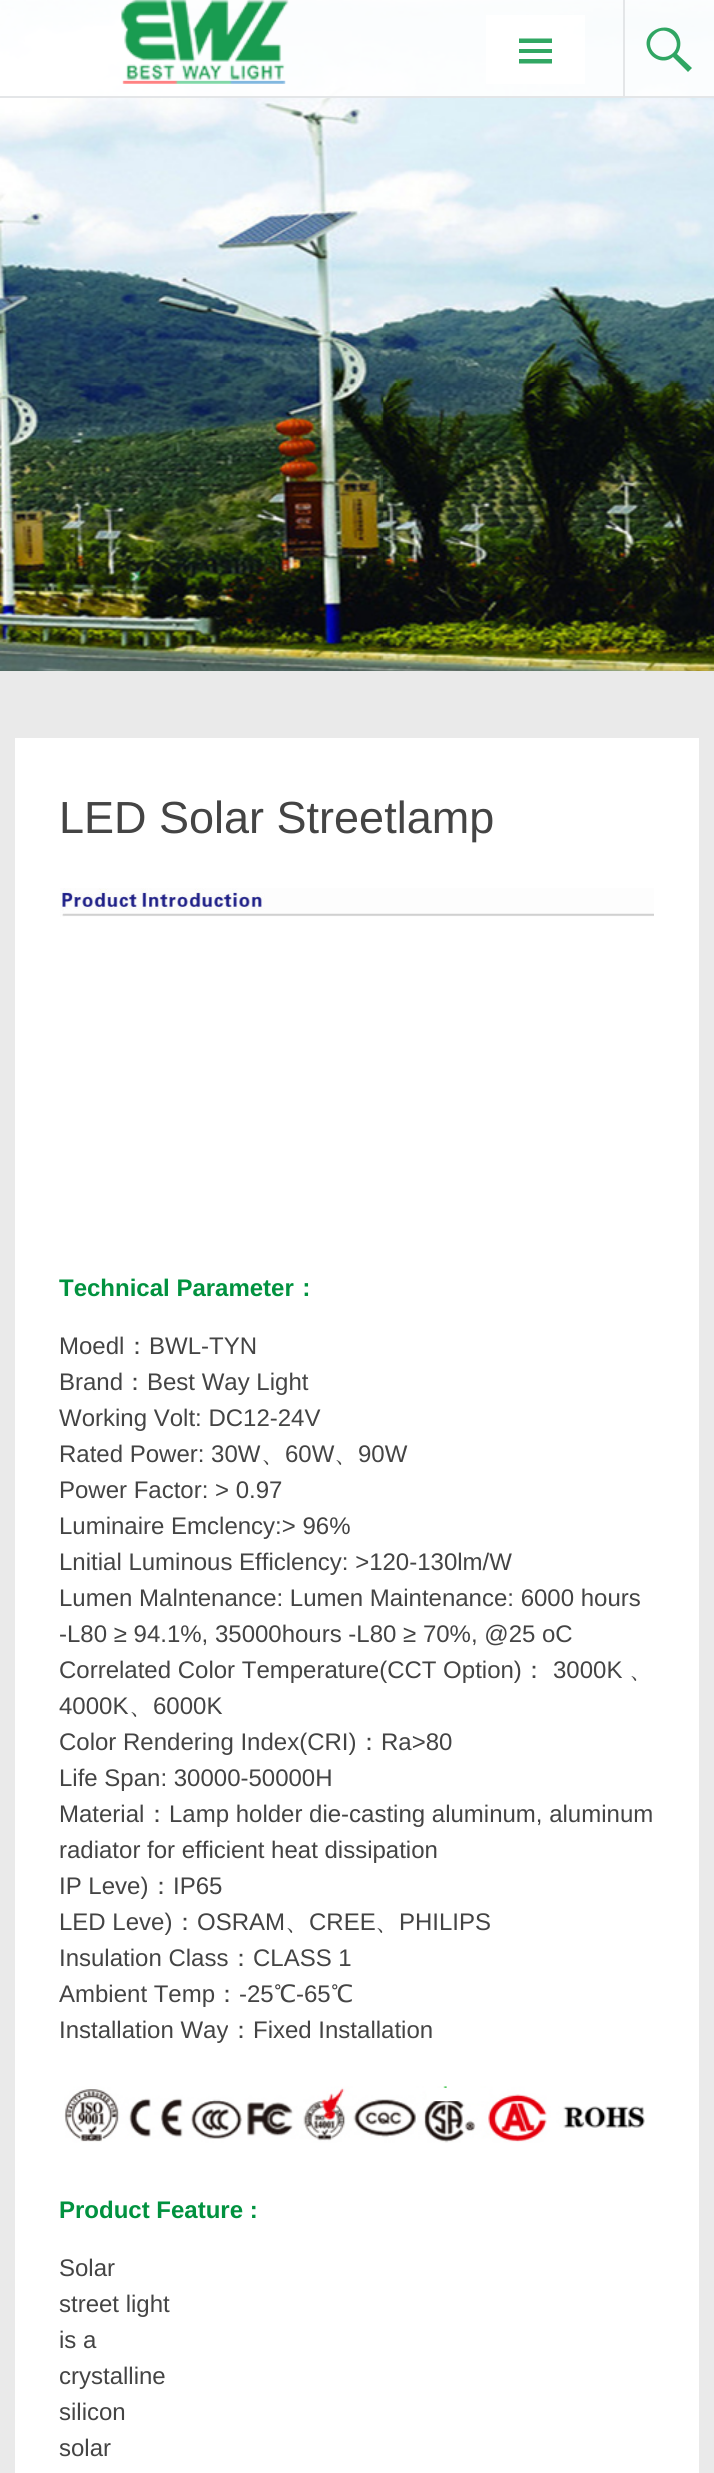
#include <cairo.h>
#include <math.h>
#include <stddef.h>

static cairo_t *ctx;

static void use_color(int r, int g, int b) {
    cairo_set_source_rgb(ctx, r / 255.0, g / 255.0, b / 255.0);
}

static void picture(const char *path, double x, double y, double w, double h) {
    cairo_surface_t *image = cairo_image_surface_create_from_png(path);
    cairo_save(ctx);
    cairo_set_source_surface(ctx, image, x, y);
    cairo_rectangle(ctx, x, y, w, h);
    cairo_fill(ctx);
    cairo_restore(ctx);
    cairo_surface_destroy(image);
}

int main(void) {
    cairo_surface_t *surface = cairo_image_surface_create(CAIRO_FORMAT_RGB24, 714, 2473);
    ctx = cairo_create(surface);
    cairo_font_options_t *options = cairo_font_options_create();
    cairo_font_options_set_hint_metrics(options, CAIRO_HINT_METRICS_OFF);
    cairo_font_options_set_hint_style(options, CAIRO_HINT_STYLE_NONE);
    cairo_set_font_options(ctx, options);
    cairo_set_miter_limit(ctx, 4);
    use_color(255, 255, 255);
    cairo_paint(ctx);
    picture("img1.png", 0, 0, 714, 671);
    cairo_set_source_rgba(ctx, 1, 1, 1, 0.9);
    cairo_rectangle(ctx, 0, 0, 714, 98);
    cairo_fill(ctx);
    cairo_set_source_rgba(ctx, 0.882, 0.894, 0.902, 0.9);
    cairo_rectangle(ctx, 0, 96, 714, 2);
    cairo_fill(ctx);
    picture("img2.png", 121, 0, 168, 84);
    cairo_set_source_rgba(ctx, 1, 1, 1, 0.9);
    cairo_rectangle(ctx, 486, 15, 99, 69);
    cairo_fill(ctx);
    use_color(49, 167, 99);
    cairo_new_path(ctx);
    cairo_move_to(ctx, 519, 63.5);
    cairo_line_to(ctx, 519, 59);
    cairo_line_to(ctx, 552, 59);
    cairo_line_to(ctx, 552, 63.5);
    cairo_close_path(ctx);
    cairo_move_to(ctx, 519, 53);
    cairo_line_to(ctx, 519, 49);
    cairo_line_to(ctx, 552, 49);
    cairo_line_to(ctx, 552, 53);
    cairo_close_path(ctx);
    cairo_move_to(ctx, 519, 43);
    cairo_line_to(ctx, 519, 38.5);
    cairo_line_to(ctx, 552, 38.5);
    cairo_line_to(ctx, 552, 43);
    cairo_close_path(ctx);
    cairo_fill(ctx);
    cairo_set_source_rgba(ctx, 0.882, 0.894, 0.902, 0.9);
    cairo_rectangle(ctx, 623, 0, 2, 96);
    cairo_fill(ctx);
    cairo_set_source_rgba(ctx, 0.102, 0.616, 0.322, 0.9);
    cairo_new_path(ctx);
    cairo_move_to(ctx, 648, 50);
    cairo_curve_to(ctx, 639, 29, 674, 17, 680, 40);
    cairo_curve_to(ctx, 681, 45, 680, 50, 677, 54);
    cairo_line_to(ctx, 692, 68);
    cairo_line_to(ctx, 688, 72);
    cairo_line_to(ctx, 673, 57);
    cairo_curve_to(ctx, 665, 64, 652, 60, 648, 50);
    cairo_close_path(ctx);
    cairo_move_to(ctx, 654, 35);
    cairo_curve_to(ctx, 642, 47, 660, 65, 673, 53);
    cairo_curve_to(ctx, 685, 41, 666, 22, 654, 35);
    cairo_close_path(ctx);
    cairo_fill(ctx);
    use_color(234, 234, 234);
    cairo_rectangle(ctx, 0, 671, 714, 1802);
    cairo_fill(ctx);
    use_color(255, 255, 255);
    cairo_rectangle(ctx, 15, 738, 684, 1735);
    cairo_fill(ctx);
    cairo_select_font_face(ctx, "Liberation Sans", CAIRO_FONT_SLANT_NORMAL, CAIRO_FONT_WEIGHT_NORMAL);
    cairo_set_font_size(ctx, 45);
    use_color(68, 68, 68);
    cairo_move_to(ctx, 59, 833);
    cairo_show_text(ctx, "LED Solar Streetlamp");
    picture("img3.png", 60, 888, 594, 29);
    cairo_select_font_face(ctx, "Liberation Sans", CAIRO_FONT_SLANT_NORMAL, CAIRO_FONT_WEIGHT_BOLD);
    cairo_set_font_size(ctx, 24);
    use_color(1, 146, 63);
    cairo_move_to(ctx, 59, 1296);
    cairo_show_text(ctx, "Technical Parameter");
    cairo_select_font_face(ctx, "WenQuanYi Zen Hei", CAIRO_FONT_SLANT_NORMAL, CAIRO_FONT_WEIGHT_BOLD);
    cairo_move_to(ctx, 294, 1296);
    cairo_show_text(ctx, "：");
    cairo_select_font_face(ctx, "Liberation Sans", CAIRO_FONT_SLANT_NORMAL, CAIRO_FONT_WEIGHT_NORMAL);
    use_color(68, 68, 68);
    cairo_move_to(ctx, 59, 1354);
    cairo_show_text(ctx, "Moedl");
    cairo_select_font_face(ctx, "WenQuanYi Zen Hei Medium", CAIRO_FONT_SLANT_NORMAL, CAIRO_FONT_WEIGHT_NORMAL);
    cairo_move_to(ctx, 125, 1354);
    cairo_show_text(ctx, "：");
    cairo_select_font_face(ctx, "Liberation Sans", CAIRO_FONT_SLANT_NORMAL, CAIRO_FONT_WEIGHT_NORMAL);
    cairo_move_to(ctx, 149, 1354);
    cairo_show_text(ctx, "BWL-TYN");
    cairo_move_to(ctx, 59, 1390);
    cairo_show_text(ctx, "Brand");
    cairo_select_font_face(ctx, "WenQuanYi Zen Hei Medium", CAIRO_FONT_SLANT_NORMAL, CAIRO_FONT_WEIGHT_NORMAL);
    cairo_move_to(ctx, 123, 1390);
    cairo_show_text(ctx, "：");
    cairo_select_font_face(ctx, "Liberation Sans", CAIRO_FONT_SLANT_NORMAL, CAIRO_FONT_WEIGHT_NORMAL);
    cairo_move_to(ctx, 147, 1390);
    cairo_show_text(ctx, "Best Way Light");
    cairo_move_to(ctx, 59, 1426);
    cairo_show_text(ctx, "Working Volt: DC12-24V");
    cairo_move_to(ctx, 59, 1462);
    cairo_show_text(ctx, "Rated Power: 30W");
    cairo_select_font_face(ctx, "WenQuanYi Zen Hei Medium", CAIRO_FONT_SLANT_NORMAL, CAIRO_FONT_WEIGHT_NORMAL);
    cairo_move_to(ctx, 261, 1462);
    cairo_show_text(ctx, "、");
    cairo_select_font_face(ctx, "Liberation Sans", CAIRO_FONT_SLANT_NORMAL, CAIRO_FONT_WEIGHT_NORMAL);
    cairo_move_to(ctx, 285, 1462);
    cairo_show_text(ctx, "60W");
    cairo_select_font_face(ctx, "WenQuanYi Zen Hei Medium", CAIRO_FONT_SLANT_NORMAL, CAIRO_FONT_WEIGHT_NORMAL);
    cairo_move_to(ctx, 334, 1462);
    cairo_show_text(ctx, "、");
    cairo_select_font_face(ctx, "Liberation Sans", CAIRO_FONT_SLANT_NORMAL, CAIRO_FONT_WEIGHT_NORMAL);
    cairo_move_to(ctx, 358, 1462);
    cairo_show_text(ctx, "90W");
    cairo_move_to(ctx, 59, 1498);
    cairo_show_text(ctx, "Power Factor: > 0.97");
    cairo_move_to(ctx, 59, 1534);
    cairo_show_text(ctx, "Luminaire Emclency:> 96%");
    cairo_move_to(ctx, 59, 1570);
    cairo_show_text(ctx, "Lnitial Luminous Efficlency: >120-130lm/W");
    cairo_move_to(ctx, 59, 1606);
    cairo_show_text(ctx, "Lumen Malntenance: Lumen Maintenance: 6000 hours");
    cairo_move_to(ctx, 59, 1642);
    cairo_show_text(ctx, "-L80 ≥ 94.1%, 35000hours -L80 ≥ 70%, @25 oC");
    cairo_move_to(ctx, 59, 1678);
    cairo_show_text(ctx, "Correlated Color Temperature(CCT Option)");
    cairo_select_font_face(ctx, "WenQuanYi Zen Hei Medium", CAIRO_FONT_SLANT_NORMAL, CAIRO_FONT_WEIGHT_NORMAL);
    cairo_move_to(ctx, 522, 1678);
    cairo_show_text(ctx, "：");
    cairo_select_font_face(ctx, "Liberation Sans", CAIRO_FONT_SLANT_NORMAL, CAIRO_FONT_WEIGHT_NORMAL);
    cairo_move_to(ctx, 553, 1678);
    cairo_show_text(ctx, "3000K");
    cairo_select_font_face(ctx, "WenQuanYi Zen Hei Medium", CAIRO_FONT_SLANT_NORMAL, CAIRO_FONT_WEIGHT_NORMAL);
    cairo_move_to(ctx, 629, 1678);
    cairo_show_text(ctx, "、");
    cairo_select_font_face(ctx, "Liberation Sans", CAIRO_FONT_SLANT_NORMAL, CAIRO_FONT_WEIGHT_NORMAL);
    cairo_move_to(ctx, 59, 1714);
    cairo_show_text(ctx, "4000K");
    cairo_select_font_face(ctx, "WenQuanYi Zen Hei Medium", CAIRO_FONT_SLANT_NORMAL, CAIRO_FONT_WEIGHT_NORMAL);
    cairo_move_to(ctx, 129, 1714);
    cairo_show_text(ctx, "、");
    cairo_select_font_face(ctx, "Liberation Sans", CAIRO_FONT_SLANT_NORMAL, CAIRO_FONT_WEIGHT_NORMAL);
    cairo_move_to(ctx, 153, 1714);
    cairo_show_text(ctx, "6000K");
    cairo_move_to(ctx, 59, 1750);
    cairo_show_text(ctx, "Color Rendering Index(CRI)");
    cairo_select_font_face(ctx, "WenQuanYi Zen Hei Medium", CAIRO_FONT_SLANT_NORMAL, CAIRO_FONT_WEIGHT_NORMAL);
    cairo_move_to(ctx, 357, 1750);
    cairo_show_text(ctx, "：");
    cairo_select_font_face(ctx, "Liberation Sans", CAIRO_FONT_SLANT_NORMAL, CAIRO_FONT_WEIGHT_NORMAL);
    cairo_move_to(ctx, 381, 1750);
    cairo_show_text(ctx, "Ra>80");
    cairo_move_to(ctx, 59, 1786);
    cairo_show_text(ctx, "Life Span: 30000-50000H");
    cairo_move_to(ctx, 59, 1822);
    cairo_show_text(ctx, "Material");
    cairo_select_font_face(ctx, "WenQuanYi Zen Hei Medium", CAIRO_FONT_SLANT_NORMAL, CAIRO_FONT_WEIGHT_NORMAL);
    cairo_move_to(ctx, 145, 1822);
    cairo_show_text(ctx, "：");
    cairo_select_font_face(ctx, "Liberation Sans", CAIRO_FONT_SLANT_NORMAL, CAIRO_FONT_WEIGHT_NORMAL);
    cairo_move_to(ctx, 169, 1822);
    cairo_show_text(ctx, "Lamp holder die-casting aluminum, aluminum");
    cairo_move_to(ctx, 59, 1858);
    cairo_show_text(ctx, "radiator for efficient heat dissipation");
    cairo_move_to(ctx, 59, 1894);
    cairo_show_text(ctx, "IP Leve)");
    cairo_select_font_face(ctx, "WenQuanYi Zen Hei Medium", CAIRO_FONT_SLANT_NORMAL, CAIRO_FONT_WEIGHT_NORMAL);
    cairo_move_to(ctx, 149, 1894);
    cairo_show_text(ctx, "：");
    cairo_select_font_face(ctx, "Liberation Sans", CAIRO_FONT_SLANT_NORMAL, CAIRO_FONT_WEIGHT_NORMAL);
    cairo_move_to(ctx, 173, 1894);
    cairo_show_text(ctx, "IP65");
    cairo_move_to(ctx, 59, 1930);
    cairo_show_text(ctx, "LED Leve)");
    cairo_select_font_face(ctx, "WenQuanYi Zen Hei Medium", CAIRO_FONT_SLANT_NORMAL, CAIRO_FONT_WEIGHT_NORMAL);
    cairo_move_to(ctx, 173, 1930);
    cairo_show_text(ctx, "：");
    cairo_select_font_face(ctx, "Liberation Sans", CAIRO_FONT_SLANT_NORMAL, CAIRO_FONT_WEIGHT_NORMAL);
    cairo_move_to(ctx, 197, 1930);
    cairo_show_text(ctx, "OSRAM");
    cairo_move_to(ctx, 309, 1930);
    cairo_show_text(ctx, "CREE");
    cairo_move_to(ctx, 399, 1930);
    cairo_show_text(ctx, "PHILIPS");
    cairo_select_font_face(ctx, "WenQuanYi Zen Hei Medium", CAIRO_FONT_SLANT_NORMAL, CAIRO_FONT_WEIGHT_NORMAL);
    cairo_move_to(ctx, 285, 1930);
    cairo_show_text(ctx, "、");
    cairo_move_to(ctx, 375, 1930);
    cairo_show_text(ctx, "、");
    cairo_select_font_face(ctx, "Liberation Sans", CAIRO_FONT_SLANT_NORMAL, CAIRO_FONT_WEIGHT_NORMAL);
    cairo_move_to(ctx, 59, 1966);
    cairo_show_text(ctx, "Insulation Class");
    cairo_select_font_face(ctx, "WenQuanYi Zen Hei Medium", CAIRO_FONT_SLANT_NORMAL, CAIRO_FONT_WEIGHT_NORMAL);
    cairo_move_to(ctx, 229, 1966);
    cairo_show_text(ctx, "：");
    cairo_select_font_face(ctx, "Liberation Sans", CAIRO_FONT_SLANT_NORMAL, CAIRO_FONT_WEIGHT_NORMAL);
    cairo_move_to(ctx, 253, 1966);
    cairo_show_text(ctx, "CLASS 1");
    cairo_move_to(ctx, 59, 2002);
    cairo_show_text(ctx, "Ambient Temp");
    cairo_select_font_face(ctx, "WenQuanYi Zen Hei Medium", CAIRO_FONT_SLANT_NORMAL, CAIRO_FONT_WEIGHT_NORMAL);
    cairo_move_to(ctx, 215, 2002);
    cairo_show_text(ctx, "：");
    cairo_select_font_face(ctx, "Liberation Sans", CAIRO_FONT_SLANT_NORMAL, CAIRO_FONT_WEIGHT_NORMAL);
    cairo_move_to(ctx, 239, 2002);
    cairo_show_text(ctx, "-25");
    cairo_select_font_face(ctx, "WenQuanYi Zen Hei Medium", CAIRO_FONT_SLANT_NORMAL, CAIRO_FONT_WEIGHT_NORMAL);
    cairo_move_to(ctx, 274, 2002);
    cairo_show_text(ctx, "℃");
    cairo_select_font_face(ctx, "Liberation Sans", CAIRO_FONT_SLANT_NORMAL, CAIRO_FONT_WEIGHT_NORMAL);
    cairo_move_to(ctx, 296, 2002);
    cairo_show_text(ctx, "-65");
    cairo_select_font_face(ctx, "WenQuanYi Zen Hei Medium", CAIRO_FONT_SLANT_NORMAL, CAIRO_FONT_WEIGHT_NORMAL);
    cairo_move_to(ctx, 331, 2002);
    cairo_show_text(ctx, "℃");
    cairo_select_font_face(ctx, "Liberation Sans", CAIRO_FONT_SLANT_NORMAL, CAIRO_FONT_WEIGHT_NORMAL);
    cairo_move_to(ctx, 59, 2038);
    cairo_show_text(ctx, "Installation Way");
    cairo_select_font_face(ctx, "WenQuanYi Zen Hei Medium", CAIRO_FONT_SLANT_NORMAL, CAIRO_FONT_WEIGHT_NORMAL);
    cairo_move_to(ctx, 229, 2038);
    cairo_show_text(ctx, "：");
    cairo_select_font_face(ctx, "Liberation Sans", CAIRO_FONT_SLANT_NORMAL, CAIRO_FONT_WEIGHT_NORMAL);
    cairo_move_to(ctx, 253, 2038);
    cairo_show_text(ctx, "Fixed Installation");
    picture("img4.png", 64, 2086, 581, 57);
    cairo_select_font_face(ctx, "Liberation Sans", CAIRO_FONT_SLANT_NORMAL, CAIRO_FONT_WEIGHT_BOLD);
    use_color(1, 146, 63);
    cairo_move_to(ctx, 59, 2218);
    cairo_show_text(ctx, "Product Feature :");
    cairo_select_font_face(ctx, "Liberation Sans", CAIRO_FONT_SLANT_NORMAL, CAIRO_FONT_WEIGHT_NORMAL);
    use_color(68, 68, 68);
    cairo_move_to(ctx, 59, 2276);
    cairo_show_text(ctx, "Solar");
    cairo_move_to(ctx, 59, 2312);
    cairo_show_text(ctx, "street light");
    cairo_move_to(ctx, 59, 2348);
    cairo_show_text(ctx, "is a");
    cairo_move_to(ctx, 59, 2384);
    cairo_show_text(ctx, "crystalline");
    cairo_move_to(ctx, 59, 2420);
    cairo_show_text(ctx, "silicon");
    cairo_move_to(ctx, 59, 2456);
    cairo_show_text(ctx, "solar");
    cairo_surface_write_to_png(surface, "result.png");
    cairo_font_options_destroy(options);
    cairo_destroy(ctx);
    cairo_surface_destroy(surface);
    return 0;
}
